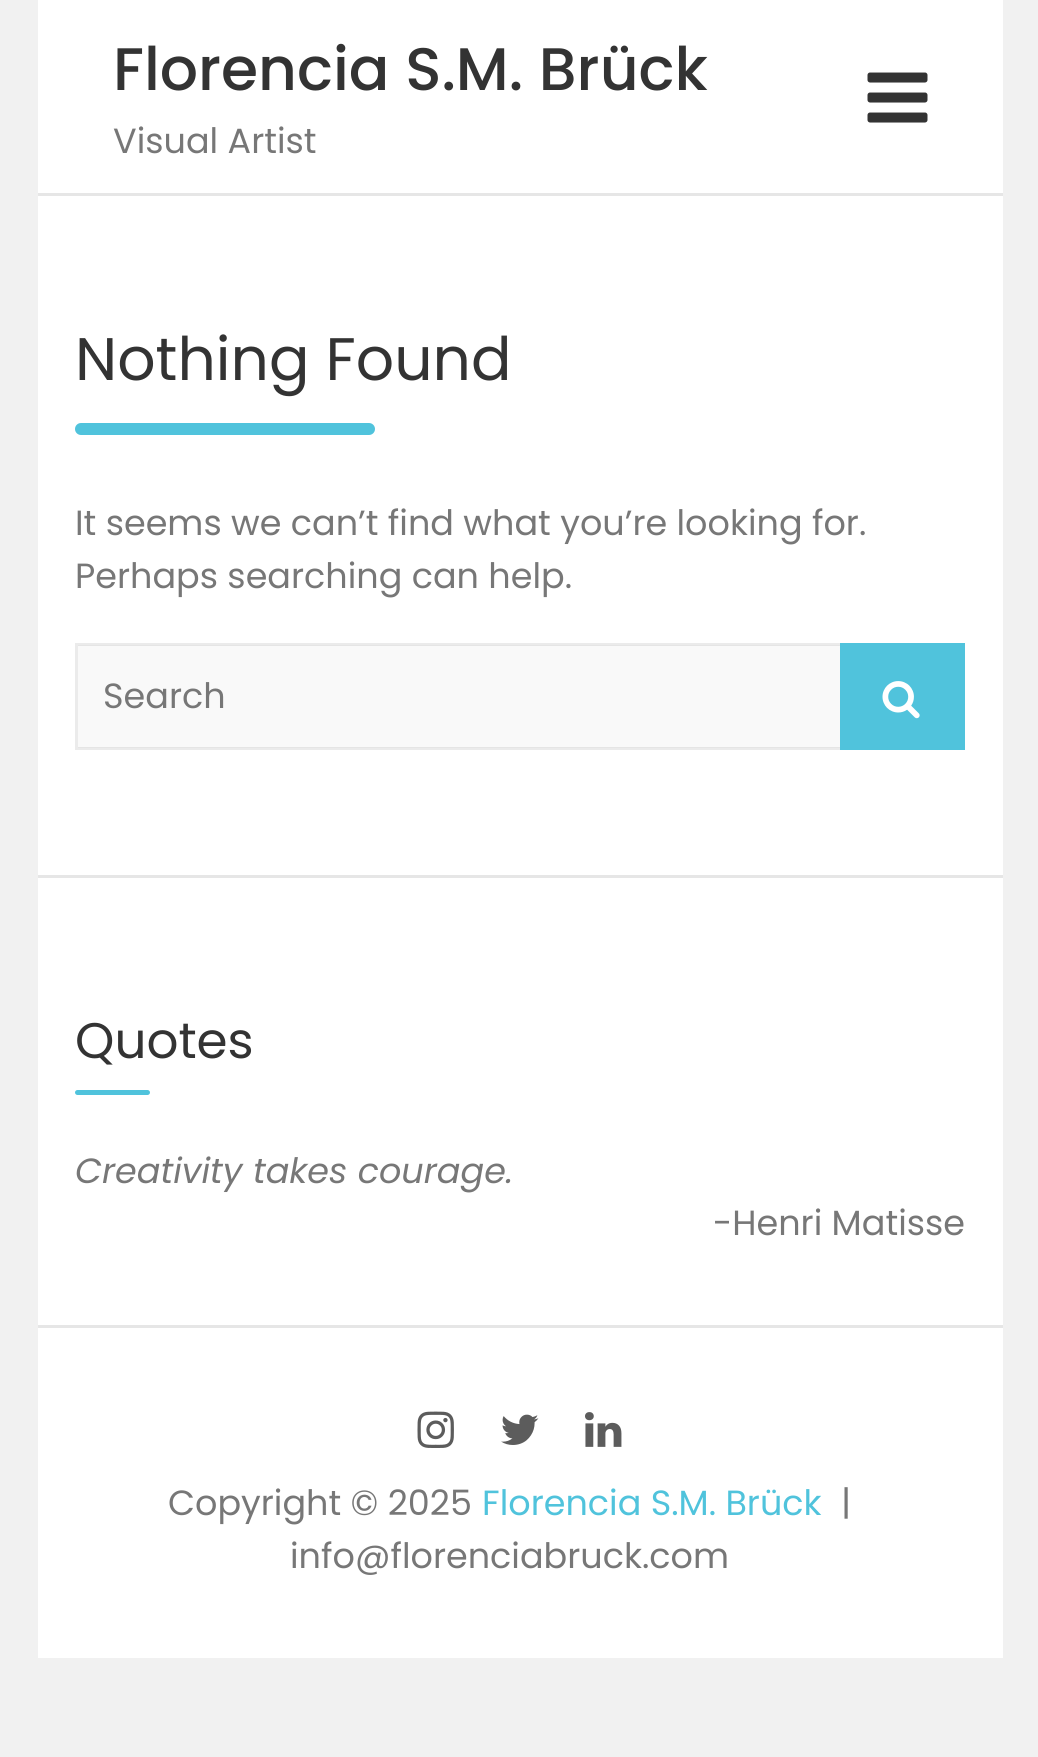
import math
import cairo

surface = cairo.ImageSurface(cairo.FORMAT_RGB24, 1038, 1757)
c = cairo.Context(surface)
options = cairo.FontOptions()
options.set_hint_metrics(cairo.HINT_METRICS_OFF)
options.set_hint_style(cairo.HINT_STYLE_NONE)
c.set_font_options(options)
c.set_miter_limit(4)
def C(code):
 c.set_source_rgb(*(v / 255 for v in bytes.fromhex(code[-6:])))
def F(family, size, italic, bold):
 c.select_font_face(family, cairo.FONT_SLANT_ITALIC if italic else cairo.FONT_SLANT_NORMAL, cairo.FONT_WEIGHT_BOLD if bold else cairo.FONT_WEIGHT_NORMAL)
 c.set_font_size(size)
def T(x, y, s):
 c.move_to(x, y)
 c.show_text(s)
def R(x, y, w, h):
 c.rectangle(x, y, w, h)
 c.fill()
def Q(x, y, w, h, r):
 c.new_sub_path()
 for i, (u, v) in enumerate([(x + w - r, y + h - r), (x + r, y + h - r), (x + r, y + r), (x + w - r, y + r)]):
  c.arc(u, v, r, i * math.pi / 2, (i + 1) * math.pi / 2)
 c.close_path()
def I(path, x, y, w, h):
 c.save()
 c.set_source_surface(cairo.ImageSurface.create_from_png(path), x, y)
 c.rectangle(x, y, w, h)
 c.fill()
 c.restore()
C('f1f1f1')
c.paint()
C('ffffff')
R(38,0,965,1658)
C('e6e6e6')
R(38,193,965,3)
F('Poppins Medium',60,0,0)
C('333333')
T(113,90,'Florencia S.M. Brück')
F('Poppins',35,0,0)
C('777777')
T(113,153,'Visual Artist')
I('1.png',867,72,61,51)
F('Poppins',60,0,0)
C('333333')
T(75,380,'Nothing Found')
C('50c3dc')
Q(75,423,300,12,6)
c.fill()
F('Poppins',35,0,0)
C('777777')
T(75,535,'It seems we can’t find what you’re looking for.')
T(75,588,'Perhaps searching can help.')
C('f9f9f9')
R(78,645,762,103)
c.rectangle(76.5,644.5,765,104)
c.set_source_rgba(0,0,0,0.08)
c.set_line_width(3)
c.stroke()
C('777777')
T(103,708,'Search')
C('50c3dc')
R(840,643,125,107)
I('2.png',882,681,38,38)
C('e6e6e6')
R(38,875,965,3)
F('Poppins',50,0,0)
C('333333')
T(75,1058,'Quotes')
C('50c3dc')
Q(75,1090,75,5,2.5)
c.fill()
F('Poppins',35,1,0)
C('777777')
T(75,1183,'Creativity takes courage.')
F('Poppins',35,0,0)
T(713,1235,'-Henri Matisse')
C('e6e6e6')
R(38,1325,965,3)
I('3.png',417,1411,37,37)
I('4.png',501,1414,38,31)
I('5.png',585,1412,37,35)
C('777777')
T(168,1515,'Copyright © 2025')
C('50c3dc')
T(482,1515,'Florencia S.M. Brück')
C('777777')
T(841,1515,'|')
T(290,1568,'info@florenciabruck.com')
surface.write_to_png('o.png')
